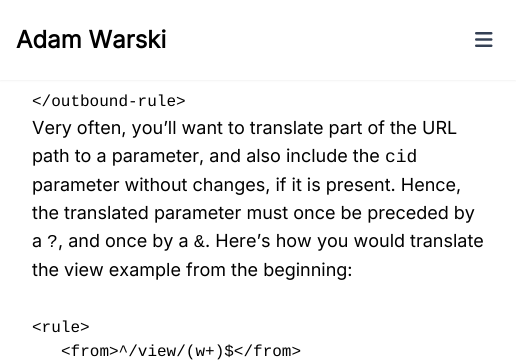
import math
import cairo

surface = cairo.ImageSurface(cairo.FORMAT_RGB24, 516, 363)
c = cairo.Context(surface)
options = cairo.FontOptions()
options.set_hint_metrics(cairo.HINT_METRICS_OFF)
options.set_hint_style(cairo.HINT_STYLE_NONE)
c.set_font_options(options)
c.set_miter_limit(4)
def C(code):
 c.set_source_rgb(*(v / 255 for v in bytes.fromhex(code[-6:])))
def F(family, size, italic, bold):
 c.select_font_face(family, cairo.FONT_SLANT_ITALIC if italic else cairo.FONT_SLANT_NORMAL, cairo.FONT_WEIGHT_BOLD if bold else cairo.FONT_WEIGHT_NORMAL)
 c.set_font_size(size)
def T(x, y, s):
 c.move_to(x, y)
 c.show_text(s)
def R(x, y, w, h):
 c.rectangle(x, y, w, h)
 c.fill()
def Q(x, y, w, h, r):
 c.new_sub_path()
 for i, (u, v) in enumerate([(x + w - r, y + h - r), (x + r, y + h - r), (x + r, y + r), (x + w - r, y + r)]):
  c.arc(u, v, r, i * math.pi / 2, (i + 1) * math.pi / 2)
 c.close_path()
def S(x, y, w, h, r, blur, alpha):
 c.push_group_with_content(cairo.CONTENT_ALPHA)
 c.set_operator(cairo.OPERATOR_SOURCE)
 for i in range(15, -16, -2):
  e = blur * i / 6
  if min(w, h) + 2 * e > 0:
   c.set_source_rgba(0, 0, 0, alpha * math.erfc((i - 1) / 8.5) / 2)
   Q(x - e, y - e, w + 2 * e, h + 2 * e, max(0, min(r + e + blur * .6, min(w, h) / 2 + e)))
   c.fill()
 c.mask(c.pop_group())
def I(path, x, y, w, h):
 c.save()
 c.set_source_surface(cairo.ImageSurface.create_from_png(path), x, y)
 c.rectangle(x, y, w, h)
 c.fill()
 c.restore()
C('ffffff')
c.paint()
C('000000')
S(0,1,516,80,0,1,.05)
C('ffffff')
R(0,0,516,80)
F('Inter',24,0,1)
C('000000')
T(16,48,'Adam Warski')
I('1.png',475,32,18,15)
F('Liberation Mono',16,0,0)
T(32,106,'</outbound-rule>')
F('Inter',18,0,0)
T(32,134,'Very often, you’ll want to translate part of the URL')
T(32,162,'path to a parameter, and also include the')
F('Liberation Mono',18,0,0)
T(385,162,'cid')
F('Inter',18,0,0)
T(32,191,'parameter without changes, if it is present. Hence,')
T(32,219,'the translated parameter must once be preceded by')
T(32,247,'a')
F('Liberation Mono',18,0,0)
T(47,247,'?')
F('Inter',18,0,0)
T(58,247,', and once by a')
F('Liberation Mono',18,0,0)
T(194,247,'&')
F('Inter',18,0,0)
T(205,247,'. Here’s how you would translate')
T(32,276,'the view example from the beginning:')
F('Liberation Mono',16,0,0)
T(32,332,'<rule>')
T(61,356,'<from>^/view/(w+)$</from>')
surface.write_to_png('o.png')
